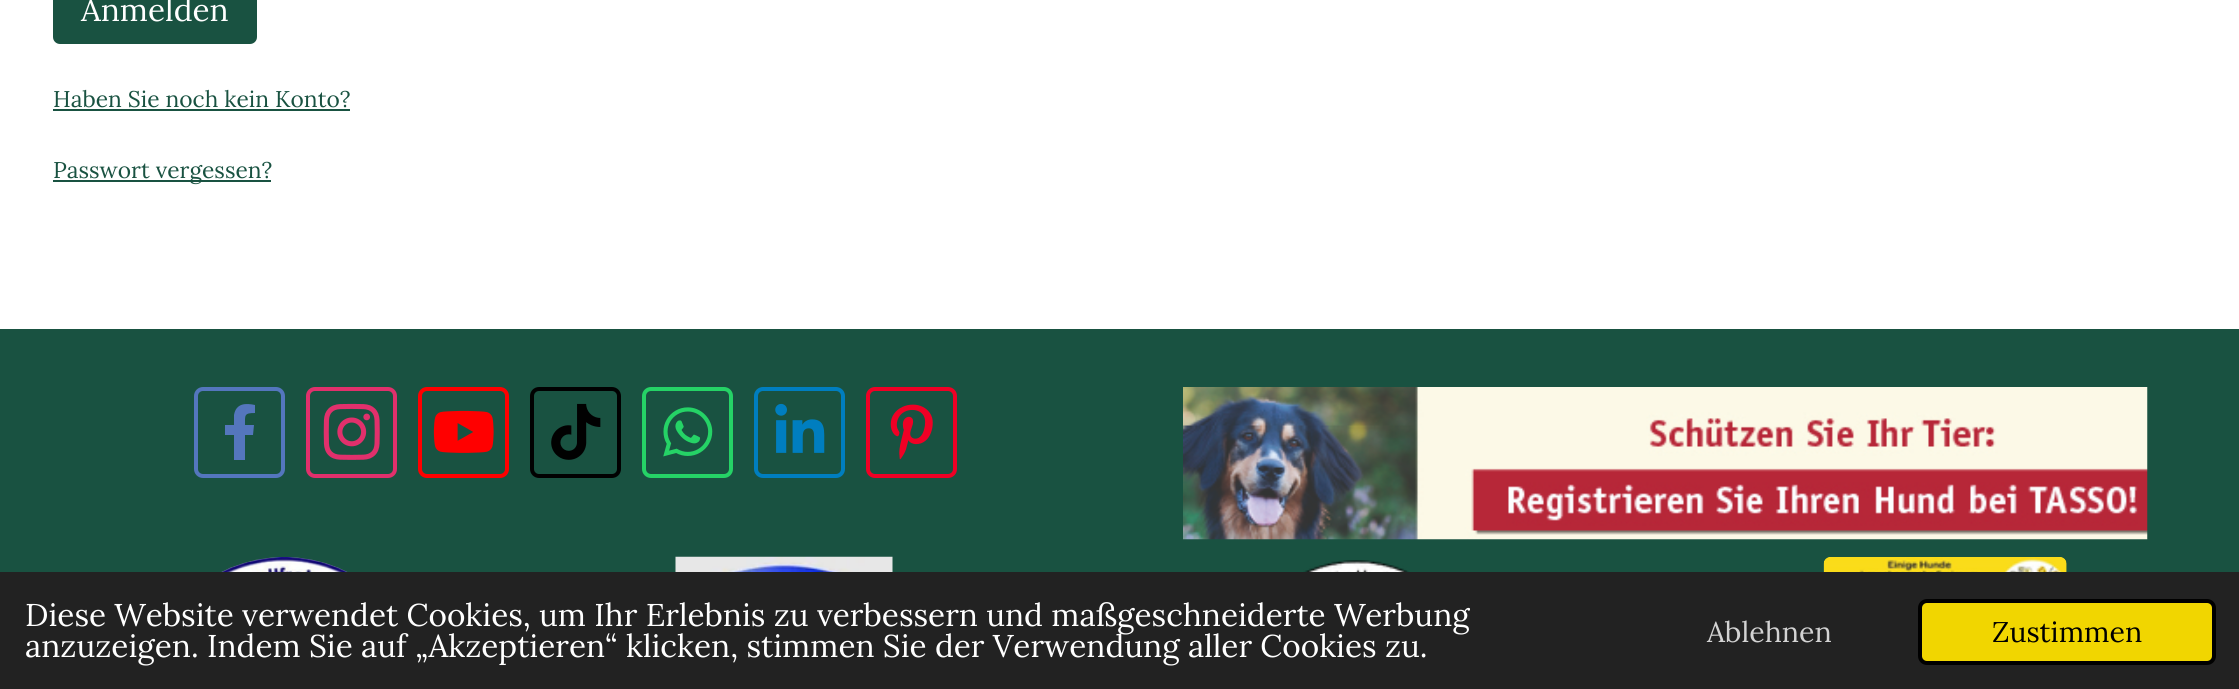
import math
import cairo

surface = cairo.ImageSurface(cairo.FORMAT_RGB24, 2239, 689)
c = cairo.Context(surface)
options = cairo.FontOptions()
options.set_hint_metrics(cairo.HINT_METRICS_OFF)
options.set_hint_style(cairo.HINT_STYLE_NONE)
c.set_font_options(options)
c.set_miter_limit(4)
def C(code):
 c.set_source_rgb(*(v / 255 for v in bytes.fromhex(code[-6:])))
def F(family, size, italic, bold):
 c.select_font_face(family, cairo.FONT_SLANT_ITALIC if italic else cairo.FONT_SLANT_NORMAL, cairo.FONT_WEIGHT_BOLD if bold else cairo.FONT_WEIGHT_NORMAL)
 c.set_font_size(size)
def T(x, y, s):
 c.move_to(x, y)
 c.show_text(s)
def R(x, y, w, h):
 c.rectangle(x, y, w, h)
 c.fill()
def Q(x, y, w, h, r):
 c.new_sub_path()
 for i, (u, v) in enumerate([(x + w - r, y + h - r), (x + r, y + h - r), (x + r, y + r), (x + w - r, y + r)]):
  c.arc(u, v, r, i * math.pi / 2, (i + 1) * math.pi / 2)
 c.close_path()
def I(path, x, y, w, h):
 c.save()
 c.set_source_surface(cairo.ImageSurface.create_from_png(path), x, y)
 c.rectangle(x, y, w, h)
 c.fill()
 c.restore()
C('ffffff')
c.paint()
C('195241')
Q(53,-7,204,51,7)
c.fill()
F('Lora',31.5,0,0)
C('ffffff')
T(81,21,'Anmelden')
F('Lora',22.75,0,0)
C('195241')
T(53,107,'Haben Sie noch kein Konto?')
R(53,109,297,2)
R(53,180,218,2)
T(53,178,'Passwort vergessen?')
R(0,329,2239,243)
Q(196,389,87,87,7)
C('5476bd')
c.set_line_width(4)
c.stroke()
c.new_path()
c.move_to(253,435)
c.line_to(254,425)
c.line_to(245,425)
c.curve_to(245,415,244,413,255,413)
c.line_to(255,405)
c.curve_to(246,403,236,403,234,415)
c.line_to(234,425)
c.line_to(225,425)
c.line_to(225,435)
c.line_to(234,435)
c.line_to(234,460)
c.line_to(245,460)
c.line_to(245,435)
c.close_path()
c.fill()
Q(308,389,87,87,7)
C('e1306c')
c.stroke()
I('1.png',323,403,57,57)
Q(420,389,87,87,7)
C('ff0000')
c.stroke()
I('2.png',433,410,61,43)
Q(532,389,87,87,7)
C('010101')
c.stroke()
I('3.png',551,403,50,57)
Q(644,389,87,87,7)
C('25d366')
c.stroke()
I('4.png',663,407,50,50)
Q(756,389,87,87,7)
C('007ebf')
c.stroke()
I('5.png',775,403,50,50)
Q(868,389,87,87,7)
C('f00025')
c.stroke()
I('6.png',890,404,43,56)
I('7.png',1183,387,965,153)
I('8.png',221,557,127,15)
I('9.png',675,556,218,16)
I('10.png',1303,560,107,12)
I('11.png',1823,557,244,15)
C('222222')
R(0,572,2239,117)
F('Lora',31.5,0,0)
C('ffffff')
T(25,626,'Diese Website verwendet Cookies, um Ihr Erlebnis zu verbessern und maßgeschneiderte Werbung')
T(25,657,'anzuzeigen. Indem Sie auf „Akzeptieren“ klicken, stimmen Sie der Verwendung aller Cookies zu.')
F('Lora',28.5,0,0)
C('d3d3d3')
T(1707,642,'Ablehnen')
C('f1d600')
Q(1920,601,294,62,7)
c.fill_preserve()
C('000000')
c.stroke()
T(1992,642,'Zustimmen')
surface.write_to_png('o.png')
